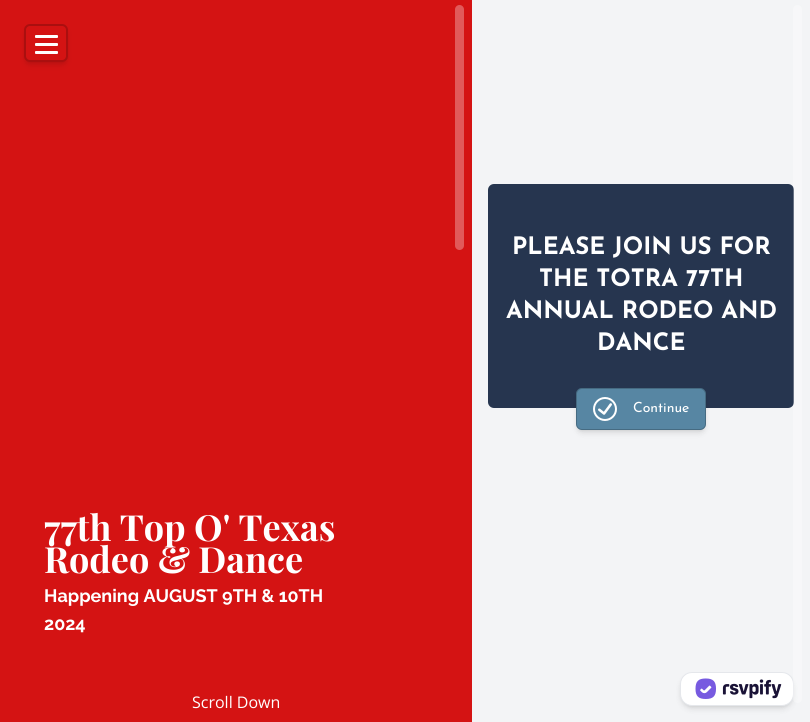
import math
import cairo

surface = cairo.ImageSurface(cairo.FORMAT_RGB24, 810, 722)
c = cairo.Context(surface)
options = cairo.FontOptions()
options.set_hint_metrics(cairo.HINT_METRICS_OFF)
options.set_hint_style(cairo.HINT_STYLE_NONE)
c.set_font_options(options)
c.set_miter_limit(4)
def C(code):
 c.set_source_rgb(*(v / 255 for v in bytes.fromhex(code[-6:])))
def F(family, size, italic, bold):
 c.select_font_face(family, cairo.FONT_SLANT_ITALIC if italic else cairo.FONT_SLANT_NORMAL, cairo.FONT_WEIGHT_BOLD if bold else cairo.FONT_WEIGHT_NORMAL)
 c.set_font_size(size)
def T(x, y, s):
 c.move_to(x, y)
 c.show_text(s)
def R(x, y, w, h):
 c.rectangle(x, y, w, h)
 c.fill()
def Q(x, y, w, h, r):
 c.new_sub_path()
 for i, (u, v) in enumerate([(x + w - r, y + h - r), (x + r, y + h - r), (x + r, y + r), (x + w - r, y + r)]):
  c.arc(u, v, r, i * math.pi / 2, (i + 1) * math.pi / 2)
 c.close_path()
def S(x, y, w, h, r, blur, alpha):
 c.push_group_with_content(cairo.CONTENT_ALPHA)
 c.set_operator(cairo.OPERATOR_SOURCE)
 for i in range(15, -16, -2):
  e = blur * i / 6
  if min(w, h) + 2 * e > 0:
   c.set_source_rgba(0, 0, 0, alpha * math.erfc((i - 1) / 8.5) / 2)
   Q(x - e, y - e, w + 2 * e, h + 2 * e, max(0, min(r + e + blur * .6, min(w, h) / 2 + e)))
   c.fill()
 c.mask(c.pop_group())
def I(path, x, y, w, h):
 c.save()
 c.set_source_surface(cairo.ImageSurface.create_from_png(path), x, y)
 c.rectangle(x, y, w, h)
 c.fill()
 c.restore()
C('f3f4f6')
c.paint()
C('26354f')
Q(488,184,306,224,6)
c.fill()
F('Josefin Sans',24,0,1)
C('ffffff')
T(512,254,'PLEASE JOIN US FOR')
T(539,286,'THE TOTRA 77TH')
T(506,318,'ANNUAL RODEO AND')
T(597,350,'DANCE')
C('000000')
S(578,392,126,38,4,2,.1)
S(577,393,128,40,5,3,.1)
C('5786a3')
Q(576,388,130,42,6)
c.fill()
Q(576.5,388.5,129,41,5.5)
c.set_source_rgba(0,0,0,0.2)
c.set_line_width(1)
c.stroke()
I('1.png',593,397,24,24)
F('Josefin Sans',14,0,0)
C('ffffff')
T(633,412,'Continue')
C('000000')
S(682,676,110,30,10,2,.1)
S(681,677,112,32,11,3,.1)
C('ffffff')
Q(680.5,672.5,113,33,11.5)
c.fill_preserve()
C('e5e7eb')
c.stroke()
c.set_source_rgba(1,1,1,0.3)
Q(793,5,9,698,4.5)
c.fill()
I('2.png',695,678,87,21)
C('d41313')
R(0,0,472,722)
C('e15a5a')
Q(455,5,9,245,4.5)
c.fill()
C('000000')
S(26,28,40,34,4,2,.1)
S(25,29,42,36,5,3,.1)
C('d41313')
Q(25,25,42,36,5)
c.fill_preserve()
C('aa0f0f')
c.set_line_width(2)
c.stroke()
C('ffffff')
Q(35,35,23,3,1)
c.fill()
Q(35,43,23,3,1)
c.fill()
Q(35,51,23,3,1)
c.fill()
F('Playfair Display',36,0,1)
T(44,541,'77th Top O\' Texas')
T(44,573,'Rodeo & Dance')
F('Raleway',18,0,1)
T(44,602,'Happening AUGUST 9TH & 10TH')
T(44,630,'2024')
F('Open Sans',16,0,0)
T(192,708,'Scroll Down')
surface.write_to_png('o.png')
